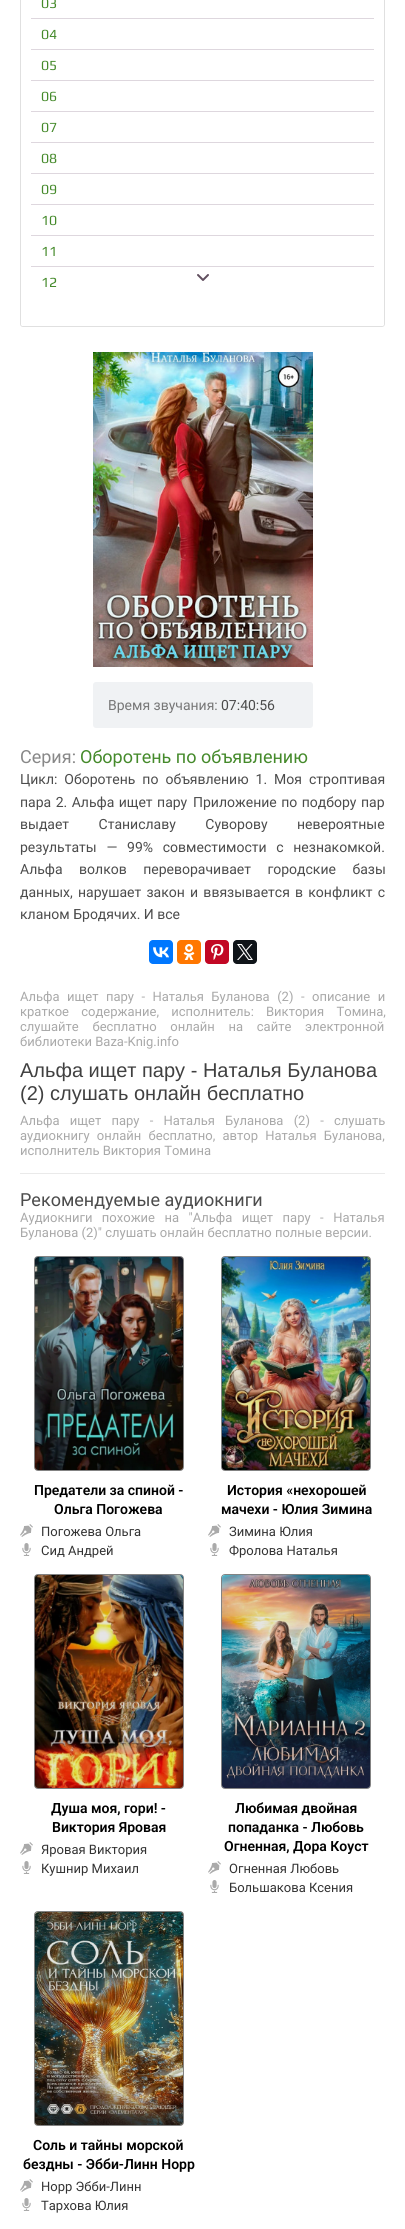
import math
import cairo

surface = cairo.ImageSurface(cairo.FORMAT_RGB24, 405, 2229)
c = cairo.Context(surface)
options = cairo.FontOptions()
options.set_hint_metrics(cairo.HINT_METRICS_OFF)
options.set_hint_style(cairo.HINT_STYLE_NONE)
c.set_font_options(options)
c.set_miter_limit(4)
def C(code):
 c.set_source_rgb(*(v / 255 for v in bytes.fromhex(code[-6:])))
def F(family, size, italic, bold):
 c.select_font_face(family, cairo.FONT_SLANT_ITALIC if italic else cairo.FONT_SLANT_NORMAL, cairo.FONT_WEIGHT_BOLD if bold else cairo.FONT_WEIGHT_NORMAL)
 c.set_font_size(size)
def T(x, y, s):
 c.move_to(x, y)
 c.show_text(s)
def L(x, y, s, letter, word):
 c.move_to(x, y)
 for ch in s:
  c.show_text(ch)
  c.rel_move_to(letter + word * (ch == ' '), 0)
def R(x, y, w, h):
 c.rectangle(x, y, w, h)
 c.fill()
def Q(x, y, w, h, r):
 c.new_sub_path()
 for i, (u, v) in enumerate([(x + w - r, y + h - r), (x + r, y + h - r), (x + r, y + r), (x + w - r, y + r)]):
  c.arc(u, v, r, i * math.pi / 2, (i + 1) * math.pi / 2)
 c.close_path()
def I(path, x, y, w, h):
 c.save()
 c.set_source_surface(cairo.ImageSurface.create_from_png(path), x, y)
 c.rectangle(x, y, w, h)
 c.fill()
 c.restore()
C('ffffff')
c.paint()
Q(20.5,-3.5,364,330,2.5)
C('e0e0e0')
c.set_line_width(1)
c.stroke()
C('ffffff')
Q(21,-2,363,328,2)
c.fill()
F('Play',14,0,0)
C('458a2b')
T(41,8,'03')
C('ded7de')
R(31,18,343,1)
C('458a2b')
T(41,39,'04')
C('ded7de')
R(31,49,343,1)
C('458a2b')
T(41,70,'05')
C('ded7de')
R(31,80,343,1)
C('458a2b')
T(41,101,'06')
C('ded7de')
R(31,111,343,1)
C('458a2b')
T(41,132,'07')
C('ded7de')
R(31,142,343,1)
C('458a2b')
T(41,163,'08')
C('ded7de')
R(31,173,343,1)
C('458a2b')
T(41,194,'09')
C('ded7de')
R(31,204,343,1)
C('458a2b')
T(41,225,'10')
C('ded7de')
R(31,235,343,1)
C('458a2b')
T(41,256,'11')
C('ded7de')
R(31,266,343,1)
C('458a2b')
T(41,287,'12')
c.new_path()
c.move_to(198,275)
c.line_to(203,280)
c.move_to(203,280)
c.line_to(208,275)
C('614f5f')
c.set_line_width(2)
c.set_line_cap(cairo.LINE_CAP_ROUND)
c.stroke()
I('1.png',93,352,220,315)
C('f0f2f4')
Q(93,682,220,46,3)
c.fill()
F('Roboto',14,0,0)
C('777777')
T(108,710,'Время звучания:')
C('4c4c4c')
T(221,710,'07:40:56')
F('Roboto',18,0,0)
C('888888')
T(20,763,'Серия:')
C('458a2b')
T(80,763,'Оборотень по объявлению')
F('Roboto',14,0,0)
C('4c4c4c')
L(20,784,'Цикл: Оборотень по объявлению 1. Моя строптивая',0,3.5)
L(20,807,'пара 2. Альфа ищет пару',0,1)
L(193,807,'Приложение по подбору пар',0,1)
L(20,829,'выдает Станиславу Суворову невероятные',0,26)
L(20,852,'результаты — 99% совместимости с незнакомкой.',0,6.25)
L(20,874,'Альфа волков переворачивает городские базы',0,13)
L(20,897,'данных, нарушает закон и ввязывается в конфликт с',0,1.75)
T(20,919,'кланом Бродячих. И все')
C('0077ff')
Q(149,940,24,24,4)
c.fill()
I('2.png',153,947,16,11)
C('ff7700')
Q(177,940,24,24,4)
c.fill()
I('3.png',183,944,12,16)
C('c20724')
Q(205,940,24,24,4)
c.fill()
I('4.png',211,944,13,16)
C('0f1419')
Q(233,940,24,24,4)
c.fill()
I('5.png',237,944,16,16)
F('Roboto',13,0,0)
C('a9a9a9')
L(20,1001,'Альфа ищет пару - Наталья Буланова (2) - описание и',0,4.25)
L(20,1016,'краткое содержание, исполнитель: Виктория Томина,',0,9)
L(20,1031,'слушайте бесплатно онлайн на сайте электронной',0,10.5)
T(20,1046,'библиотеки Baza-Knig.info')
F('Liberation Sans',20,0,0)
C('404040')
T(20,1077,'Альфа ищет пару - Наталья Буланова')
T(20,1100,'(2) слушать онлайн бесплатно')
F('Roboto',13,0,0)
C('a9a9a9')
L(20,1125,'Альфа ищет пару - Наталья Буланова (2) - слушать',0,7)
L(20,1140,'аудиокнигу онлайн бесплатно, автор Наталья Буланова,',0,4)
T(20,1155,'исполнитель Виктория Томина')
C('eaeaea')
R(20,1173,365,1)
F('Roboto',18,0,0)
C('4c4c4c')
T(20,1206,'Рекомендуемые аудиокниги')
F('Roboto',13,0,0)
C('a9a9a9')
L(20,1222,'Аудиокниги похожие на "Альфа ищет пару - Наталья',0,6.25)
T(20,1237,'Буланова (2)" слушать онлайн бесплатно полные версии.')
Q(34.5,1256.5,149,214,3.5)
C('838383')
c.set_line_width(1)
c.set_line_cap(cairo.LINE_CAP_BUTT)
c.stroke()
I('6.png',35,1257,148,213)
F('Roboto SemiBold',14,0,0)
C('000000')
T(34,1495,'Предатели за спиной -')
T(54,1514,'Ольга Погожева')
I('7.png',20,1524,13,13)
F('Roboto',13,0,0)
C('333333')
T(41,1536,'Погожева Ольга')
I('8.png',22,1543,9,13)
T(41,1555,'Сид Андрей')
Q(221.5,1256.5,149,214,3.5)
C('838383')
c.stroke()
I('9.png',222,1257,148,213)
F('Roboto SemiBold',14,0,0)
C('000000')
T(227,1495,'История «нехорошей')
T(221,1514,'мачехи - Юлия Зимина')
I('7.png',208,1524,13,13)
F('Roboto',13,0,0)
C('333333')
T(229,1536,'Зимина Юлия')
I('8.png',210,1543,9,13)
T(229,1555,'Фролова Наталья')
Q(34.5,1574.5,149,214,3.5)
C('838383')
c.stroke()
I('10.png',35,1575,148,213)
F('Roboto SemiBold',14,0,0)
C('000000')
T(51,1813,'Душа моя, гори! -')
T(52,1832,'Виктория Яровая')
I('7.png',20,1842,13,13)
F('Roboto',13,0,0)
C('333333')
T(41,1854,'Яровая Виктория')
I('8.png',22,1861,9,13)
T(41,1873,'Кушнир Михаил')
Q(221.5,1574.5,149,214,3.5)
C('838383')
c.stroke()
I('11.png',222,1575,148,213)
F('Roboto SemiBold',14,0,0)
C('000000')
T(235,1813,'Любимая двойная')
T(228,1832,'попаданка - Любовь')
T(224,1851,'Огненная, Дора Коуст')
I('7.png',208,1861,13,13)
F('Roboto',13,0,0)
C('333333')
T(229,1873,'Огненная Любовь')
I('8.png',210,1880,9,13)
T(229,1892,'Большакова Ксения')
Q(34.5,1911.5,149,214,3.5)
C('838383')
c.stroke()
I('12.png',35,1912,148,213)
F('Roboto SemiBold',14,0,0)
C('000000')
T(33,2150,'Соль и тайны морской')
T(23,2169,'бездны - Эбби-Линн Норр')
I('7.png',20,2179,13,13)
F('Roboto',13,0,0)
C('333333')
T(41,2191,'Норр Эбби-Линн')
I('8.png',22,2198,9,13)
T(41,2210,'Тархова Юлия')
surface.write_to_png('o.png')
